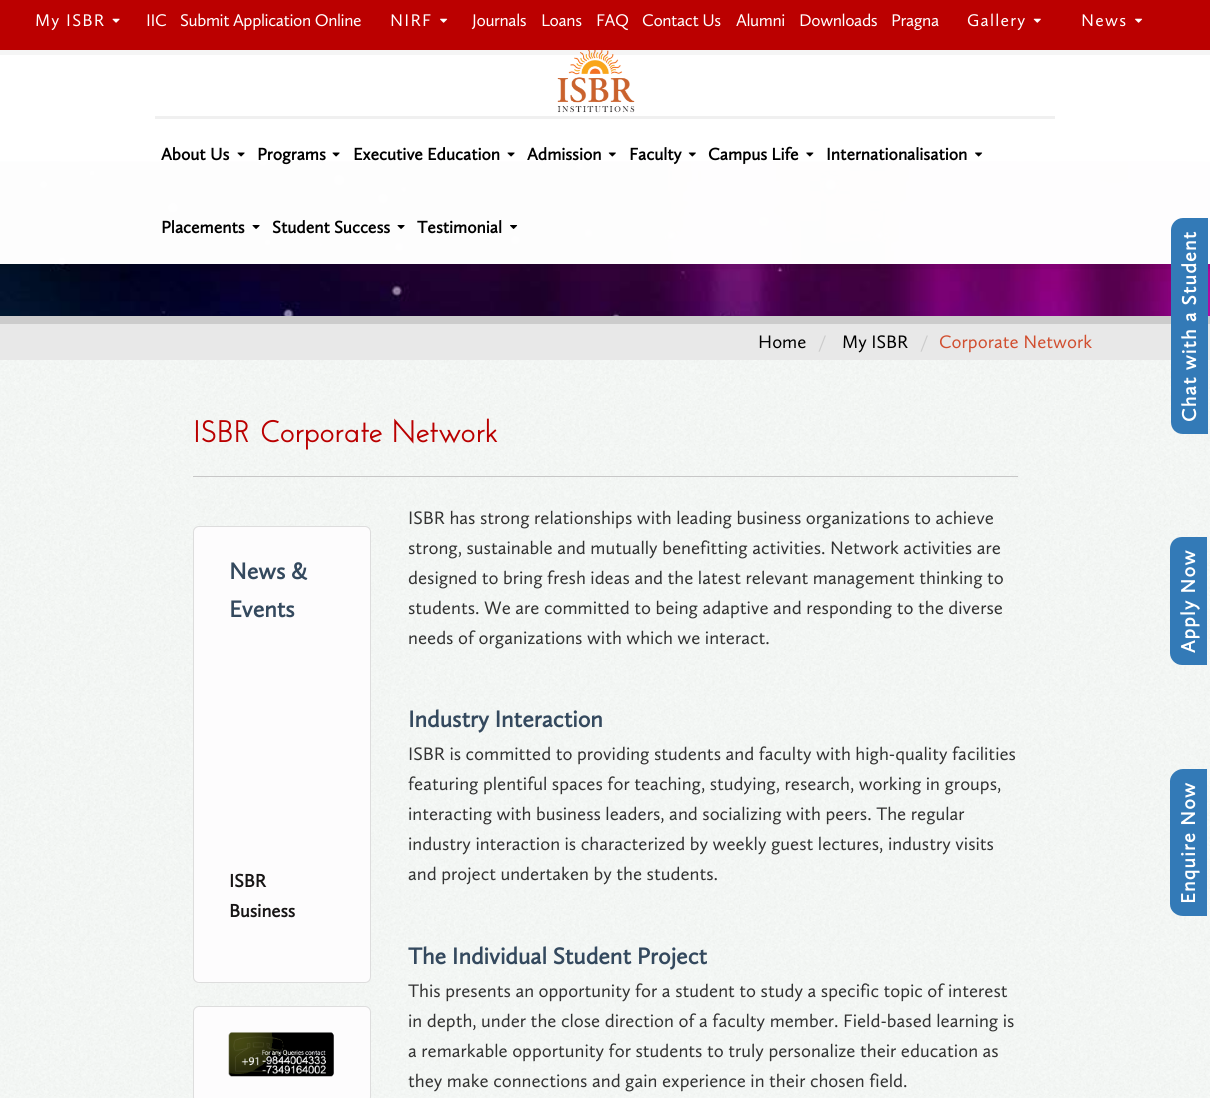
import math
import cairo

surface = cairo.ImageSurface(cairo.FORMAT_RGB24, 1210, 1098)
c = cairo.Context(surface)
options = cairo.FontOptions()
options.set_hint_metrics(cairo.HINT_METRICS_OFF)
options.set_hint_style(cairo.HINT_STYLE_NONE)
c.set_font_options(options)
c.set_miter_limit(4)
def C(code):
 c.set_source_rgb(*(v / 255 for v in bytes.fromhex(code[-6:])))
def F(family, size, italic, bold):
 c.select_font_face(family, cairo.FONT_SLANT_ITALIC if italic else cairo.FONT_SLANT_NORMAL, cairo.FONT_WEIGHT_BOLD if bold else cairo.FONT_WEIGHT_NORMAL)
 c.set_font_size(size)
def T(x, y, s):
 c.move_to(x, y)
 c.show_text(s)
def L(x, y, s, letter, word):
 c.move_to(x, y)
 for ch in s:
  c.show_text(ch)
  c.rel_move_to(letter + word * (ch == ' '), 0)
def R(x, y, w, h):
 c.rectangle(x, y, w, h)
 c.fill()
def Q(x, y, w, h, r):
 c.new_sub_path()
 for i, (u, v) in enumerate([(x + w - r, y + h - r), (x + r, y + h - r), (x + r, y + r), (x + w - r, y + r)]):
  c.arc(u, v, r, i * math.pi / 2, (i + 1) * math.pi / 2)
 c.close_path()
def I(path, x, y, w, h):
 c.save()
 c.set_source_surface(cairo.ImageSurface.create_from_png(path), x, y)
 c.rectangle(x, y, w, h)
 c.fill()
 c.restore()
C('ffffff')
c.paint()
I('12.png',0,161,1210,155)
c.set_source_rgba(0,0,0,0.05)
R(62,264,1148,5)
c.set_source_rgba(1,1,1,0.99)
R(0,161,1210,103)
I('4.png',557,50,78,63)
c.set_source_rgba(0,0,0,0.04)
R(0,50,1210,5)
C('bb0000')
R(0,0,1210,50)
F('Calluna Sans',17.5,0,0)
C('ffffff')
L(35,26,'My ISBR',1.25,0)
I('1.png',112,18,8,5)
L(146,26,'IIC',-.4,0)
L(180,26,'Submit Application Online',-.4,0)
L(390,26,'NIRF',1.25,0)
I('2.png',440,18,8,5)
L(472,26,'Journals',-.4,0)
L(541,26,'Loans',-.4,0)
L(596,26,'FAQ',-.4,0)
L(642,26,'Contact Us',-.4,0)
L(736,26,'Alumni',-.4,0)
L(799,26,'Downloads',-.4,0)
L(891,26,'Pragna',-.4,0)
L(967,26,'Gallery',1.25,0)
I('3.png',1033,18,8,5)
L(1081,26,'News',1.25,0)
I('2.png',1135,18,8,5)
C('f0f0f0')
R(155,116,900,3)
F('Calluna Sans',17.5,0,1)
C('000000')
T(161,160,'About Us')
I('5.png',237,152,8,5)
T(257,160,'Programs')
I('5.png',332,152,8,5)
T(353,160,'Executive Education')
I('5.png',507,152,8,5)
T(527,160,'Admission')
I('6.png',608,152,8,5)
T(629,160,'Faculty')
I('6.png',688,152,8,5)
T(708,160,'Campus Life')
I('7.png',806,152,8,5)
T(826,160,'Internationalisation')
I('8.png',975,152,8,5)
T(161,233,'Placements')
I('9.png',252,225,8,4)
T(272,233,'Student Success')
I('10.png',397,225,8,4)
T(417,233,'Testimonial')
I('11.png',510,225,8,4)
C('cccccc')
R(0,316,1210,8)
C('e8e8e8')
R(0,324,1210,36)
F('Calluna Sans',18.75,0,0)
C('000000')
T(758,348,'Home')
C('cccccc')
T(818,348,'/')
C('000000')
T(842,348,'My ISBR')
C('cccccc')
T(920,348,'/')
C('d14f30')
T(939,348,'Corporate Network')
I('13.png',0,360,1210,738)
C('337ab7')
c.new_path()
c.move_to(1171,422)
c.line_to(1171,230)
c.curve_to(1171,224,1176,218,1183,218)
c.line_to(1208,218)
c.line_to(1208,434)
c.line_to(1183,434)
c.curve_to(1176,434,1171,429,1171,422)
c.close_path()
c.fill()
F('Calluna Sans',20,0,1)
C('ffffff')
c.save()
c.translate(1196,422)
c.rotate(-90 * math.pi / 180)
L(0,0,'Chat with a Student',1.25,0)
c.restore()
F('Josefin Sans',30,0,1)
C('ba0000')
T(193,442,'ISBR Corporate Network')
C('c7c7c7')
R(193,476,825,1)
C('fdfcfd')
Q(193.5,526.5,177,456,5.5)
c.fill_preserve()
C('dddddd')
c.set_line_width(1)
c.stroke()
F('Calluna Sans',23.75,0,1)
C('34495e')
T(229,579,'News &')
T(229,617,'Events')
F('Calluna Sans',18.75,0,1)
C('171515')
T(229,887,'ISBR')
T(229,917,'Business')
C('fdfcfd')
Q(193.5,1006.5,177,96,5.5)
c.fill_preserve()
C('dddddd')
c.stroke()
I('14.png',228,1032,106,45)
F('Calluna Sans',18.75,0,0)
C('333333')
T(408,524,'ISBR has strong relationships with leading business organizations to achieve')
T(408,554,'strong, sustainable and mutually benefitting activities. Network activities are')
T(408,584,'designed to bring fresh ideas and the latest relevant management thinking to')
T(408,614,'students. We are committed to being adaptive and responding to the diverse')
T(408,644,'needs of organizations with which we interact.')
F('Calluna Sans',23.75,0,1)
C('34495e')
T(408,727,'Industry Interaction')
F('Calluna Sans',18.75,0,0)
C('333333')
T(408,760,'ISBR is committed to providing students and faculty with high-quality facilities')
T(408,790,'featuring plentiful spaces for teaching, studying, research, working in groups,')
T(408,820,'interacting with business leaders, and socializing with peers. The regular')
T(408,850,'industry interaction is characterized by weekly guest lectures, industry visits')
T(408,880,'and project undertaken by the students.')
F('Calluna Sans',23.75,0,1)
C('34495e')
T(408,964,'The Individual Student Project')
F('Calluna Sans',18.75,0,0)
C('333333')
T(408,997,'This presents an opportunity for a student to study a specific topic of interest')
T(408,1027,'in depth, under the close direction of a faculty member. Field-based learning is')
T(408,1057,'a remarkable opportunity for students to truly personalize their education as')
T(408,1087,'they make connections and gain experience in their chosen field.')
C('337ab7')
c.new_path()
c.move_to(1170,653)
c.line_to(1170,549)
c.curve_to(1170,542,1175,537,1182,537)
c.line_to(1207,537)
c.line_to(1207,665)
c.line_to(1182,665)
c.curve_to(1175,665,1170,659,1170,653)
c.close_path()
c.fill()
F('Calluna Sans',20,0,1)
C('ffffff')
c.save()
c.translate(1195,653)
c.rotate(-90 * math.pi / 180)
L(0,0,'Apply Now',1.25,0)
c.restore()
C('337ab7')
c.new_path()
c.move_to(1170,904)
c.line_to(1170,781)
c.curve_to(1170,775,1176,769,1183,769)
c.line_to(1207,769)
c.line_to(1207,916)
c.line_to(1183,916)
c.curve_to(1176,916,1170,911,1170,904)
c.close_path()
c.fill()
C('ffffff')
c.save()
c.translate(1195,904)
c.rotate(-90 * math.pi / 180)
L(0,0,'Enquire Now',1.25,0)
c.restore()
surface.write_to_png('o.png')
